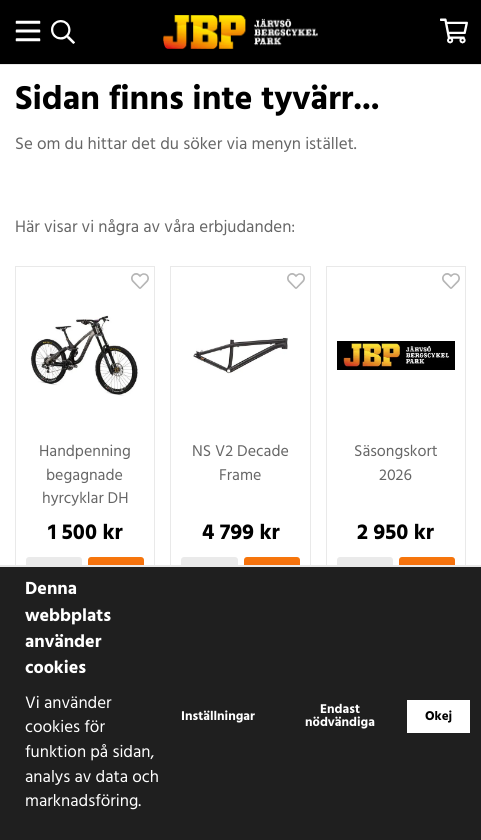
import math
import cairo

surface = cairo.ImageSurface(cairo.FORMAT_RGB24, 481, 840)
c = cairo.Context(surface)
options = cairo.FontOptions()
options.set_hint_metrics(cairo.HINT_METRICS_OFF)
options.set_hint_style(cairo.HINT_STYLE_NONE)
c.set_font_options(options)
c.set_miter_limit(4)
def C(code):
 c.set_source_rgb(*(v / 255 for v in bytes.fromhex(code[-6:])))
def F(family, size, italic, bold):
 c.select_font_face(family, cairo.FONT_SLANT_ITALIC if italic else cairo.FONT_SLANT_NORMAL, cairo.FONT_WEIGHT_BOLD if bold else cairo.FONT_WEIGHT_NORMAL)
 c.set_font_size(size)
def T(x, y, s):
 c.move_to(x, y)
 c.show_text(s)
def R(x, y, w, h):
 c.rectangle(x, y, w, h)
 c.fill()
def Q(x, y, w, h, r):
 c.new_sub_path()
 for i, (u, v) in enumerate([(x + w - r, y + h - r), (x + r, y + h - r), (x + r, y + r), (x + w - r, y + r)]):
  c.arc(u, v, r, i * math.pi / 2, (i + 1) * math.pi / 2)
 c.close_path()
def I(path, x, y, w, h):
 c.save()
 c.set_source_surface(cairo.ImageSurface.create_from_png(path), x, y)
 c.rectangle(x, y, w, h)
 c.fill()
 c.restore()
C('ffffff')
c.paint()
C('000000')
R(0,0,481,64)
C('e9e9e9')
R(0,64,481,1)
I('1.png',15,20,26,22)
I('2.png',51,20,24,24)
I('3.png',163,15,155,34)
I('4.png',440,18,28,26)
F('Hind',34,0,1)
C('000000')
T(15,109,'Sidan finns inte tyvärr...')
F('Hind',17,0,0)
C('666666')
T(15,149,'Se om du hittar det du söker via menyn istället.')
T(15,232,'Här visar vi några av våra erbjudanden:')
c.rectangle(15.5,266.5,139,352)
C('e9e9e9')
c.set_line_width(1)
c.stroke()
I('5.png',131,273,18,16)
I('6.png',30,315,109,81)
F('Hind',16,0,0)
C('666666')
T(39,456,'Handpenning')
T(46,480,'begagnade')
T(42,503,'hyrcyklar DH')
F('Hind',22,0,1)
C('000000')
T(48,539,'1 500 kr')
C('eaeaea')
Q(26,557,56,51,3)
c.fill()
gradient = cairo.LinearGradient(116,557,116,608)
gradient.add_color_stop_rgba(0,0.965,0.463,0.047,1)
gradient.add_color_stop_rgba(1,0.902,0.294,0.078,1)
c.set_source(gradient)
Q(88,557,56,51,3)
c.fill()
c.rectangle(170.5,266.5,140,352)
C('e9e9e9')
c.stroke()
I('5.png',287,273,18,16)
I('7.png',193,337,95,37)
F('Hind',16,0,0)
C('666666')
T(192,456,'NS V2 Decade')
T(219,480,'Frame')
F('Hind',22,0,1)
C('000000')
T(202,539,'4 799 kr')
C('eaeaea')
Q(181,557,57,51,3)
c.fill()
gradient = cairo.LinearGradient(272,557,272,608)
gradient.add_color_stop_rgba(0,0.965,0.463,0.047,1)
gradient.add_color_stop_rgba(1,0.902,0.294,0.078,1)
c.set_source(gradient)
Q(244,557,56,51,3)
c.fill()
c.rectangle(326.5,266.5,139,352)
C('e9e9e9')
c.stroke()
I('5.png',442,273,18,16)
I('8.png',337,341,118,29)
F('Hind',16,0,0)
C('666666')
T(354,456,'Säsongskort')
T(379,480,'2026')
F('Hind',22,0,1)
C('000000')
T(357,539,'2 950 kr')
C('eaeaea')
Q(337,557,56,51,3)
c.fill()
gradient = cairo.LinearGradient(427,557,427,608)
gradient.add_color_stop_rgba(0,0.965,0.463,0.047,1)
gradient.add_color_stop_rgba(1,0.902,0.294,0.078,1)
c.set_source(gradient)
Q(399,557,56,51,3)
c.fill()
C('1f1f1f')
R(0,567,481,273)
C('e9e9e9')
R(0,565,481,2)
F('Hind',18,0,1)
C('ffffff')
T(25,594,'Denna')
T(25,621,'webbplats')
T(25,647,'använder')
T(25,673,'cookies')
F('Hind',17,0,0)
T(25,708,'Vi använder')
T(25,732,'cookies för')
T(25,757,'funktion på sidan,')
T(25,782,'analys av data och')
T(25,806,'marknadsföring.')
F('Hind',13,0,1)
T(181,720,'Inställningar')
T(320,713,'Endast')
T(305,726,'nödvändiga')
R(407,700,63,33)
C('000000')
T(425,720,'Okej')
surface.write_to_png('o.png')
